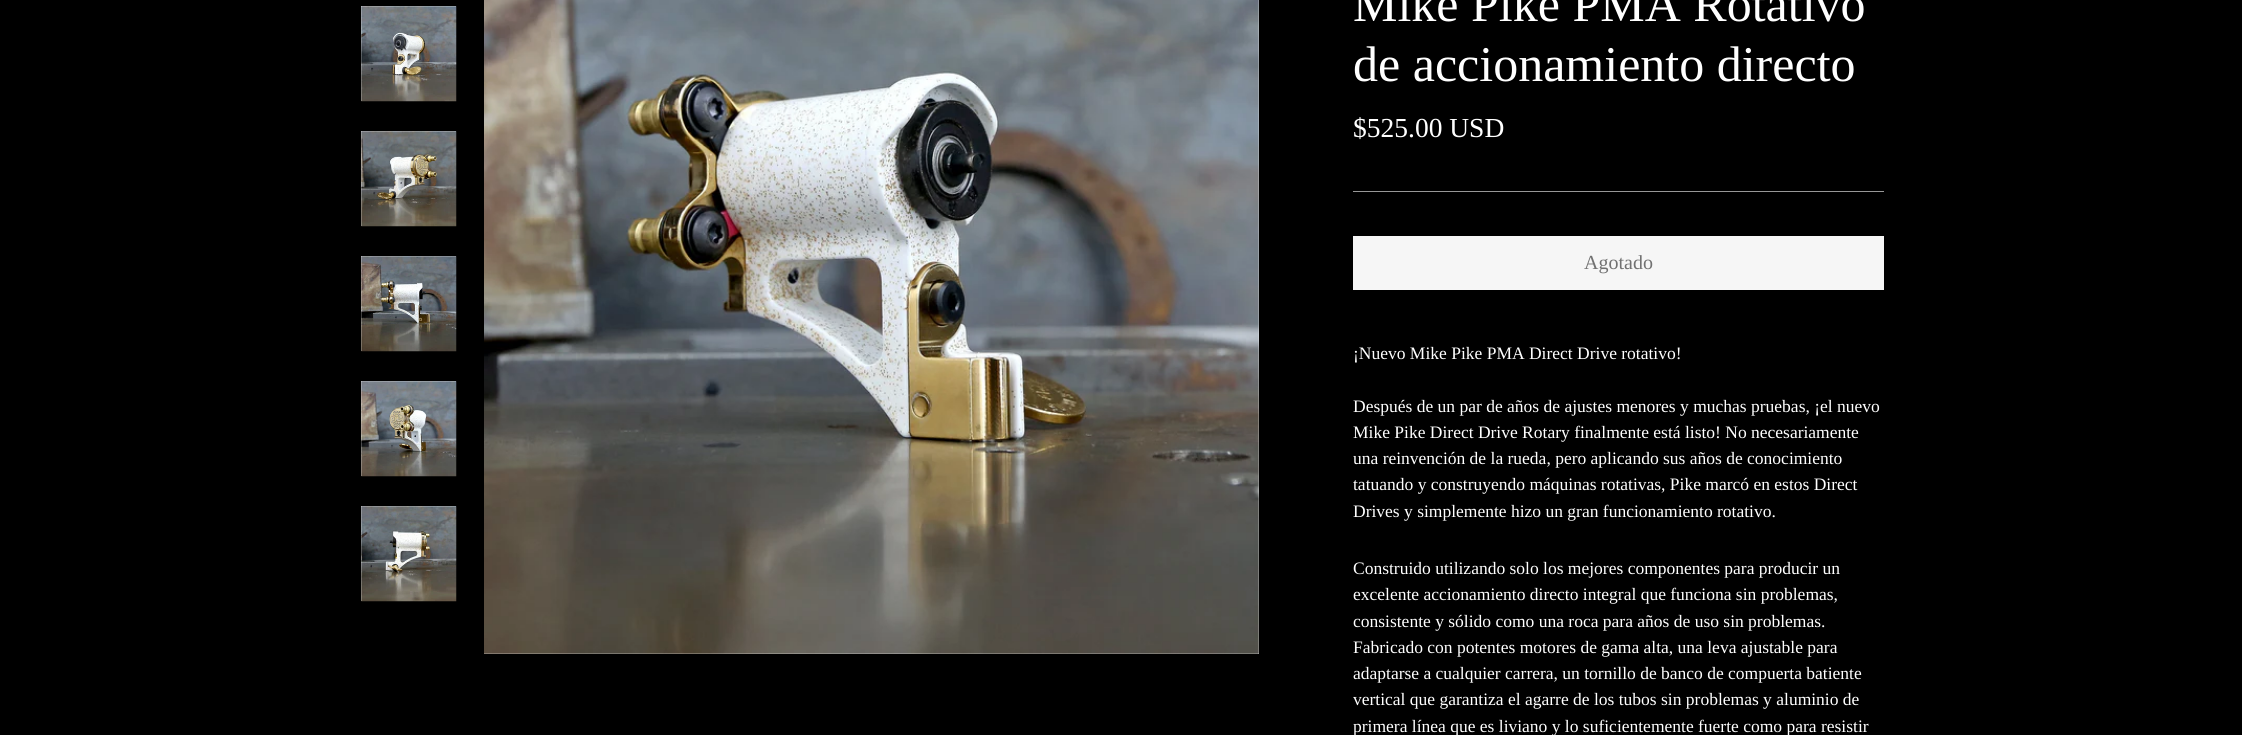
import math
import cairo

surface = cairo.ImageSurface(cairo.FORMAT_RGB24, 2242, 735)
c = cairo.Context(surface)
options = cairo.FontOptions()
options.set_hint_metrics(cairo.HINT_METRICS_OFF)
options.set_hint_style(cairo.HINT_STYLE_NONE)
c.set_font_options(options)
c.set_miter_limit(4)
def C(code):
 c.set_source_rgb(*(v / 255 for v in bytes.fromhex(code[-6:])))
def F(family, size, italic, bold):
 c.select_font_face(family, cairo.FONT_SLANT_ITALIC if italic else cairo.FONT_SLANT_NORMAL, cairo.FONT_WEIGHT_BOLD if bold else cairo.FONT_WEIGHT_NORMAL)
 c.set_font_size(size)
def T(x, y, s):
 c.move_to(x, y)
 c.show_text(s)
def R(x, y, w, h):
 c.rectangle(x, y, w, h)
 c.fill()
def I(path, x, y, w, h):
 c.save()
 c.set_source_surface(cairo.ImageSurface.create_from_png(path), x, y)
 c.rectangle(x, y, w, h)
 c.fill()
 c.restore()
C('000000')
c.paint()
C('ffffff')
R(361,6,95,95)
I('1.png',361,6,96,96)
R(361,131,95,95)
I('2.png',361,131,96,96)
R(361,256,95,95)
I('3.png',361,256,96,96)
R(361,381,95,95)
I('4.png',361,381,96,96)
R(361,506,95,95)
I('5.png',361,506,96,96)
R(484,0,775,654)
I('6.png',484,0,775,654)
F('Liberation Serif',50,0,0)
T(1353,21,'Mike Pike PMA Rotativo')
T(1353,81,'de accionamiento directo')
F('Liberation Serif',27.5,0,0)
T(1353,137,'$525.00 USD')
C('979797')
R(1353,191,531,1)
C('f6f6f6')
R(1353,236,531,54)
F('Liberation Serif',20,0,0)
C('717171')
T(1584,269,'Agotado')
F('Liberation Serif',17.5,0,0)
C('ffffff')
T(1353,359,'¡Nuevo Mike Pike PMA Direct Drive rotativo!')
T(1353,412,'Después de un par de años de ajustes menores y muchas pruebas, ¡el nuevo')
T(1353,438,'Mike Pike Direct Drive Rotary finalmente está listo! No necesariamente')
T(1353,464,'una reinvención de la rueda, pero aplicando sus años de conocimiento')
T(1353,490,'tatuando y construyendo máquinas rotativas, Pike marcó en estos Direct')
T(1353,517,'Drives y simplemente hizo un gran funcionamiento rotativo.')
T(1353,574,'Construido utilizando solo los mejores componentes para producir un')
T(1353,600,'excelente accionamiento directo integral que funciona sin problemas,')
T(1353,627,'consistente y sólido como una roca para años de uso sin problemas.')
T(1353,653,'Fabricado con potentes motores de gama alta, una leva ajustable para')
T(1353,679,'adaptarse a cualquier carrera, un tornillo de banco de compuerta batiente')
T(1353,705,'vertical que garantiza el agarre de los tubos sin problemas y aluminio de')
T(1353,732,'primera línea que es liviano y lo suficientemente fuerte como para resistir')
surface.write_to_png('o.png')
